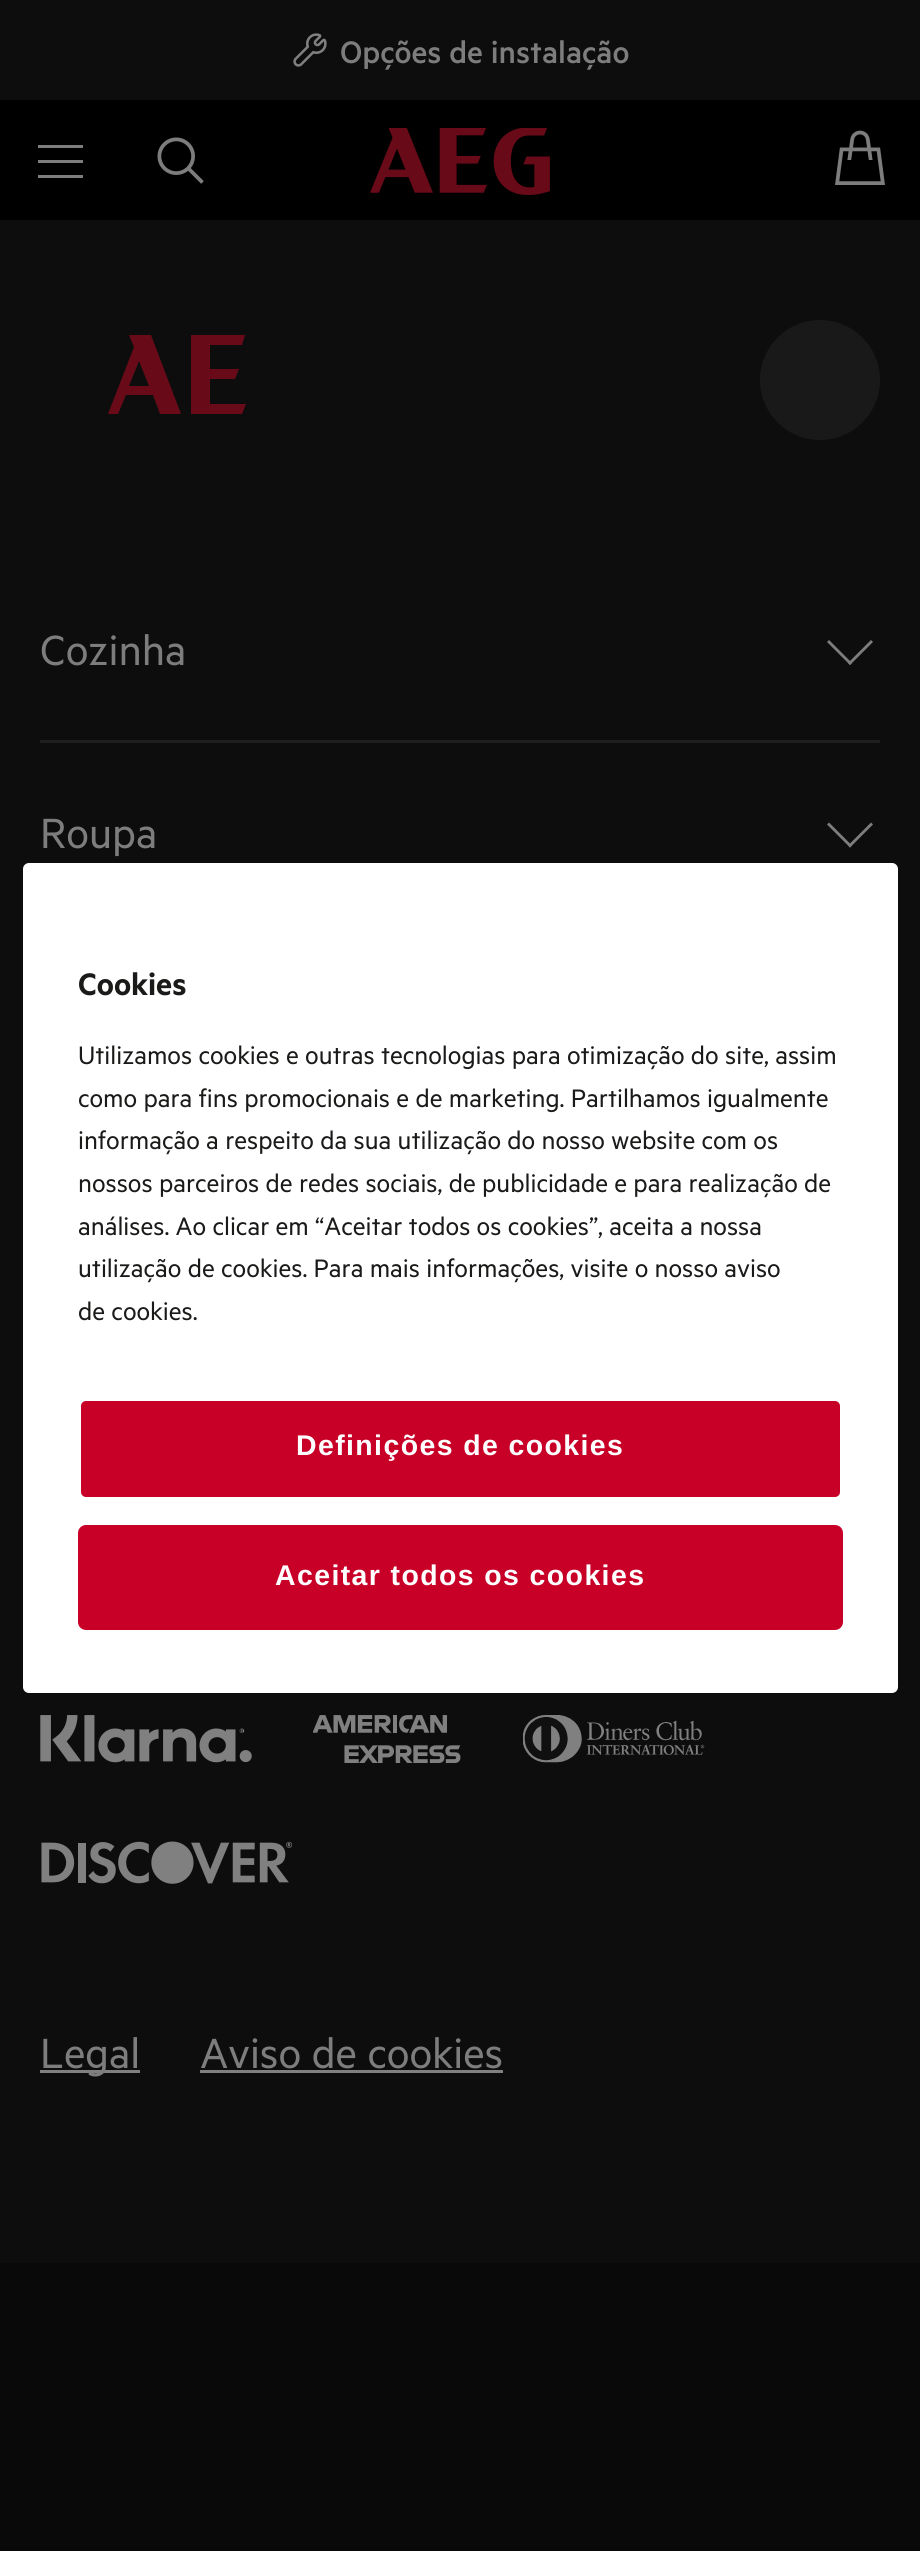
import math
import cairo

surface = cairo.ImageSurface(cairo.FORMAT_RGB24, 920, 2551)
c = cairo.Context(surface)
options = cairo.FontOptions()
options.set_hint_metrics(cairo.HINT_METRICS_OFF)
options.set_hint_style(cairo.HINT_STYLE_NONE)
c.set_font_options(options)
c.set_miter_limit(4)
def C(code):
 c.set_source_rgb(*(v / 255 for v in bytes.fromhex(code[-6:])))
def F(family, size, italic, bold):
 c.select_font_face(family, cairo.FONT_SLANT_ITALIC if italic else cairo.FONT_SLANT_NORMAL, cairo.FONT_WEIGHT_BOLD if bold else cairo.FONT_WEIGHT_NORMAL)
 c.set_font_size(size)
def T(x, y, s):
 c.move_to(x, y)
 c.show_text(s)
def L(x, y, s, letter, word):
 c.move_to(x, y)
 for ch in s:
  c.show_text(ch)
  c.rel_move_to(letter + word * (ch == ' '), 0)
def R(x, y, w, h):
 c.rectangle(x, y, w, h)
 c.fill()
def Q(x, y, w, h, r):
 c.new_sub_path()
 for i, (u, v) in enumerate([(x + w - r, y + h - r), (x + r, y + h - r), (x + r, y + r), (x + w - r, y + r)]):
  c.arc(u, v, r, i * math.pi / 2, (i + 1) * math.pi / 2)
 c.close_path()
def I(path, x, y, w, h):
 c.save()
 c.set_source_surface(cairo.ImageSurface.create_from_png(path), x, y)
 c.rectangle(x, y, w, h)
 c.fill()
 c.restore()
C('090909')
c.paint()
C('0d0d0d')
R(0,0,920,100)
I('1.png',293,33,34,34)
F('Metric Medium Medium',35,0,0)
C('7d7d7d')
T(340,63,'Opções de instalação')
C('000000')
R(0,100,920,120)
C('7d7d7d')
R(38,160,45,3)
R(38,145,45,3)
R(38,175,45,3)
I('2.png',157,137,47,47)
I('3.png',370,128,180,67)
I('4.png',835,130,50,55)
C('0d0d0d')
R(0,220,920,2043)
C('680a18')
c.new_path()
c.move_to(129,335)
c.line_to(134,347)
c.line_to(108,414)
c.line_to(118,414)
c.line_to(126,395)
c.line_to(153,395)
c.line_to(160,414)
c.line_to(181,414)
c.line_to(151,335)
c.close_path()
c.move_to(129,386)
c.line_to(139,361)
c.line_to(149,386)
c.close_path()
c.fill()
c.new_path()
c.move_to(210,379)
c.line_to(235,379)
c.line_to(239,369)
c.line_to(210,369)
c.line_to(210,345)
c.line_to(242,345)
c.line_to(245,335)
c.line_to(191,335)
c.line_to(191,414)
c.line_to(242,414)
c.line_to(246,404)
c.line_to(210,404)
c.close_path()
c.fill()
C('191919')
c.arc(820,380,60,0,2 * math.pi)
c.fill()
C('1e1e1e')
R(40,740,840,3)
F('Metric',47.5,0,0)
C('7d7d7d')
T(40,665,'Cozinha')
c.new_path()
c.move_to(871,640)
c.line_to(873,642)
c.line_to(850,665)
c.line_to(848,663)
c.close_path()
c.fill()
c.new_path()
c.move_to(829,640)
c.line_to(852,663)
c.line_to(850,665)
c.line_to(827,642)
c.close_path()
c.fill()
T(40,848,'Roupa')
c.new_path()
c.move_to(871,822.5)
c.line_to(873,824.5)
c.line_to(850,847.5)
c.line_to(848,845.5)
c.close_path()
c.fill()
c.new_path()
c.move_to(829,822.5)
c.line_to(852,845.5)
c.line_to(850,847.5)
c.line_to(827,824.5)
c.close_path()
c.fill()
I('5.png',40,1715,212,48)
I('6.png',313,1715,148,48)
I('7.png',523,1715,182,48)
I('8.png',41,1841,252,43)
C('808080')
R(40,2070,100,3)
C('7d7d7d')
T(40,2068,'Legal')
T(200,2068,'Aviso de cookies')
C('808080')
R(200,2070,303,3)
C('ffffff')
Q(23,863,875,830,6)
c.fill()
F('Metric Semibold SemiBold',35,0,0)
C('1a1a19')
T(78,995,'Cookies')
F('Metric',28.45,0,0)
T(78,1064,'Utilizamos cookies e outras tecnologias para otimização do site, assim')
T(78,1107,'como para fins promocionais e de marketing. Partilhamos igualmente')
T(78,1149,'informação a respeito da sua utilização do nosso website com os')
T(78,1192,'nossos parceiros de redes sociais, de publicidade e para realização de')
T(78,1235,'análises. Ao clicar em “Aceitar todos os cookies”, aceita a nossa')
T(78,1277,'utilização de cookies. Para mais informações, visite o nosso aviso')
T(78,1320,'de cookies.')
C('c80028')
Q(79.5,1399.5,762,99,6.5)
c.fill_preserve()
C('ffffff')
c.set_line_width(3)
c.stroke()
F('Liberation Sans',28.45,0,1)
L(296,1455,'Definições de cookies',1.4,0)
C('c80028')
Q(79.5,1526.5,762,102,6.5)
c.fill_preserve()
c.stroke()
C('ffffff')
L(275,1585,'Aceitar todos os cookies',1.4,0)
surface.write_to_png('o.png')
